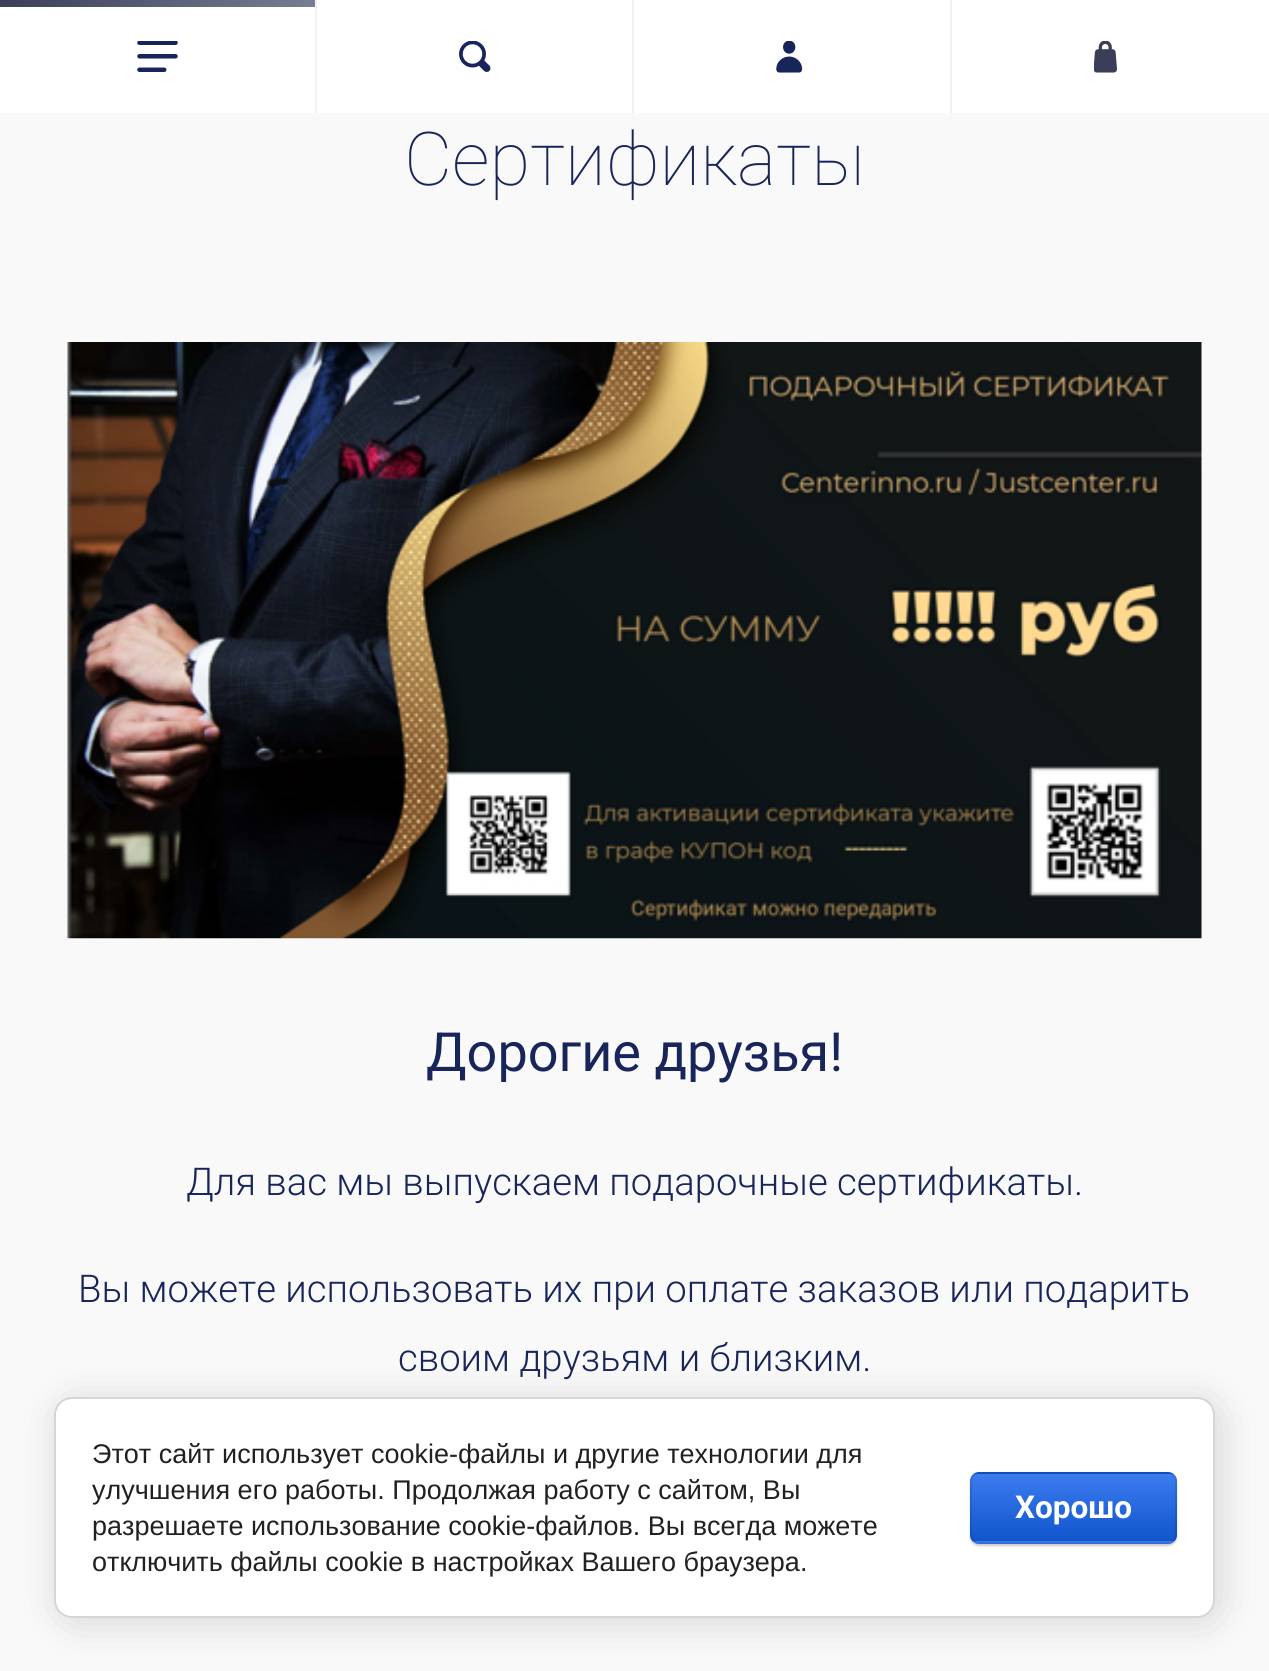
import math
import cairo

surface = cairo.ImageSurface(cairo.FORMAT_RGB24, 1269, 1671)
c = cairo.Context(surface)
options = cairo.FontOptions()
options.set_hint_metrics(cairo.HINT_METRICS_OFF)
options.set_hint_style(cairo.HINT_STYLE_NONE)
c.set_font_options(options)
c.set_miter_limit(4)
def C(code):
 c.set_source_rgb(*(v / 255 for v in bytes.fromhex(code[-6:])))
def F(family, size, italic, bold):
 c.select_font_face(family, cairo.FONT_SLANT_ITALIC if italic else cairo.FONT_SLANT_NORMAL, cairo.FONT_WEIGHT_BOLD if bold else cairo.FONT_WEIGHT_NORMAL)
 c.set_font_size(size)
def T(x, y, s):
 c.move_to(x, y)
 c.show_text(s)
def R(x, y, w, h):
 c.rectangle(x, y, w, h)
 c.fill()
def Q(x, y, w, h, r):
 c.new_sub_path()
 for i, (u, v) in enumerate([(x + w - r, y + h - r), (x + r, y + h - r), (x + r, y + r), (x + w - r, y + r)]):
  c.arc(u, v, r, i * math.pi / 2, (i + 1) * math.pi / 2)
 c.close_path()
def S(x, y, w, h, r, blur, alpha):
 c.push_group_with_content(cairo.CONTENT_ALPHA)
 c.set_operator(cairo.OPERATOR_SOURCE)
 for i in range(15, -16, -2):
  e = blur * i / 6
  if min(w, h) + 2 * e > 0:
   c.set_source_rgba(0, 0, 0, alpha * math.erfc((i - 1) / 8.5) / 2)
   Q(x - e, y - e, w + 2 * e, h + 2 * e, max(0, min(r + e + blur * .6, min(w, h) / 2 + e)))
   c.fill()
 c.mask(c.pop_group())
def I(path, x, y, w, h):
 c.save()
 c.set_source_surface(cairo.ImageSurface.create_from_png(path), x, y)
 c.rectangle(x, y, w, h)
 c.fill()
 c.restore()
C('f9f9f9')
c.paint()
C('ffffff')
R(0,0,1269,113)
I('1.png',137,41,41,31)
C('f1f1f1')
R(315,0,2,113)
gradient = cairo.LinearGradient(238,84,77,-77)
gradient.add_color_stop_rgba(0,0.467,0.498,0.58,1)
gradient.add_color_stop_rgba(1,0.227,0.243,0.345,1)
c.set_source(gradient)
R(0,0,315,7)
I('2.png',459,41,32,31)
C('f1f1f1')
R(632,0,2,113)
I('3.png',776,41,27,32)
R(950,0,2,113)
I('4.png',1094,41,23,32)
F('Roboto Thin',74.25,0,0)
C('18255b')
T(404,185,'Сертификаты')
I('5.png',67,342,1135,597)
F('Roboto',54,0,0)
T(426,1071,'Дорогие друзья!')
F('Roboto Light',38.25,0,0)
T(186,1195,'Для вас мы выпускаем подарочные сертификаты.')
T(78,1302,'Вы можете использовать их при оплате заказов или подарить')
T(398,1371,'своим друзьям и близким.')
C('000000')
S(59,1402,1161,220,18,20,.14)
C('ffffff')
Q(55,1398,1159,219,17)
c.fill_preserve()
C('d6d6d6')
c.stroke()
F('Liberation Sans',27,0,0)
C('212121')
T(92,1463,'Этот сайт использует cookie-файлы и другие технологии для')
T(92,1499,'улучшения его работы. Продолжая работу с сайтом, Вы')
T(92,1535,'разрешаете использование cookie-файлов. Вы всегда можете')
T(92,1571,'отключить файлы cookie в настройках Вашего браузера.')
C('000000')
S(970,1474,207,72,9,1,.2)
c.save()
Q(970,1472,207,72,9)
c.clip()
gradient = cairo.LinearGradient(1073,1406,1073,1474)
gradient.add_color_stop_rgba(0,0.231,0.486,0.937,1)
gradient.add_color_stop_rgba(1,0.067,0.333,0.8,1)
c.set_source(gradient)
R(970,1472,207,2)
gradient = cairo.LinearGradient(1073,1474,1073,1541)
gradient.add_color_stop_rgba(0,0.231,0.486,0.937,1)
gradient.add_color_stop_rgba(1,0.067,0.333,0.8,1)
c.set_source(gradient)
R(970,1474,207,67)
gradient = cairo.LinearGradient(1073,1541,1073,1609)
gradient.add_color_stop_rgba(0,0.231,0.486,0.937,1)
gradient.add_color_stop_rgba(1,0.067,0.333,0.8,1)
c.set_source(gradient)
R(970,1541,207,3)
c.restore()
Q(971,1473,205,70,8)
c.set_source_rgba(0,0,0,0.1)
c.stroke()
F('Roboto',31.5,0,1)
C('ffffff')
T(1015,1518,'Хорошо')
surface.write_to_png('o.png')
